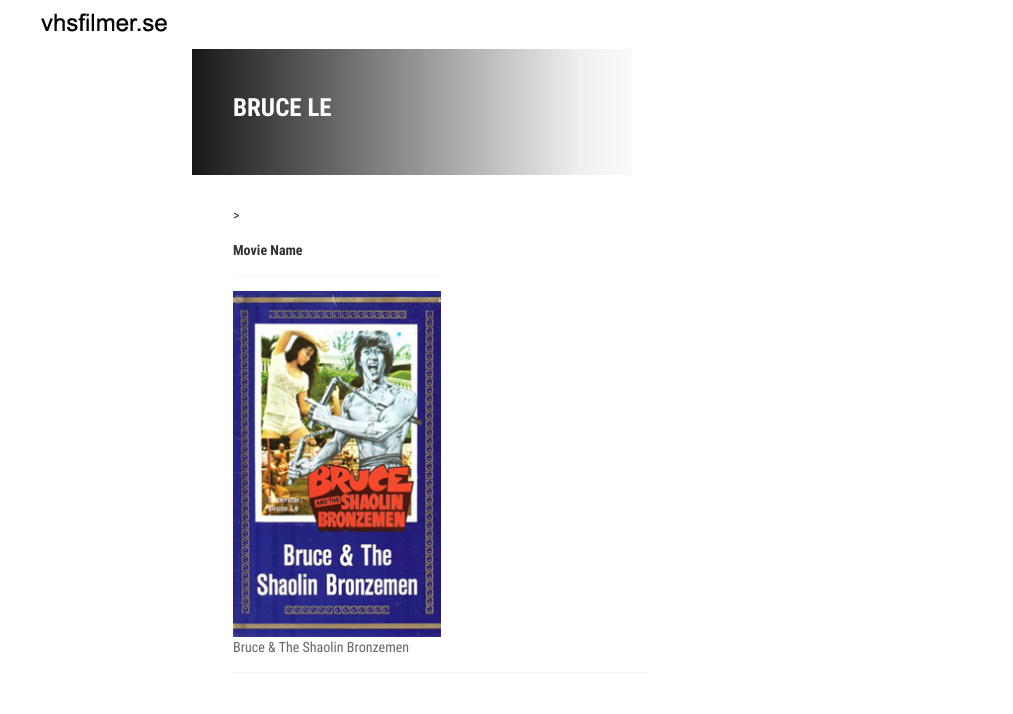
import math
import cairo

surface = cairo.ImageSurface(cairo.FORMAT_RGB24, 1013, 714)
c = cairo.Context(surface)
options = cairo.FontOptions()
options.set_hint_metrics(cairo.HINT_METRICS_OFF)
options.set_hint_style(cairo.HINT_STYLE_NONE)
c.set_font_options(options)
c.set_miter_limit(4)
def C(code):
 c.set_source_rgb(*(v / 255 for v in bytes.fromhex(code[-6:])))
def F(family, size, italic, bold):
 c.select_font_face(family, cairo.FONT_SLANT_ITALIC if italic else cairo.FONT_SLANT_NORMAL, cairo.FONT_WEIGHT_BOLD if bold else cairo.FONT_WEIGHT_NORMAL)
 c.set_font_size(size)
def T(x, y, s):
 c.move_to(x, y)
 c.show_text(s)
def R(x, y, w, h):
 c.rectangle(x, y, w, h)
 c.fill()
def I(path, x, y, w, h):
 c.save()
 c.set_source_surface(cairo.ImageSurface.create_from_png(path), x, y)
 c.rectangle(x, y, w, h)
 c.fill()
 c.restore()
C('ffffff')
c.paint()
I('1.png',41,13,126,19)
gradient = cairo.LinearGradient(192,112,648,112)
gradient.add_color_stop_rgba(0,0,0,0,.91)
gradient.add_color_stop_rgba(.85,0,0,0,.06)
gradient.add_color_stop_rgba(1,0,0,0,.01)
c.set_source(gradient)
R(192,49,440,126)
F('Roboto Condensed',25,0,1)
C('ffffff')
T(233,116,'BRUCE LE')
F('Roboto Condensed',14,0,0)
C('333333')
T(233,220,'>')
C('f6f6f6')
R(233,275,208,1)
F('Roboto Condensed',14,0,1)
C('333333')
T(233,255,'Movie Name')
C('f6f6f6')
R(233,672,415,1)
I('2.png',233,291,208,346)
F('Roboto Condensed',14,0,0)
C('666666')
T(233,652,'Bruce & The Shaolin Bronzemen')
surface.write_to_png('o.png')
